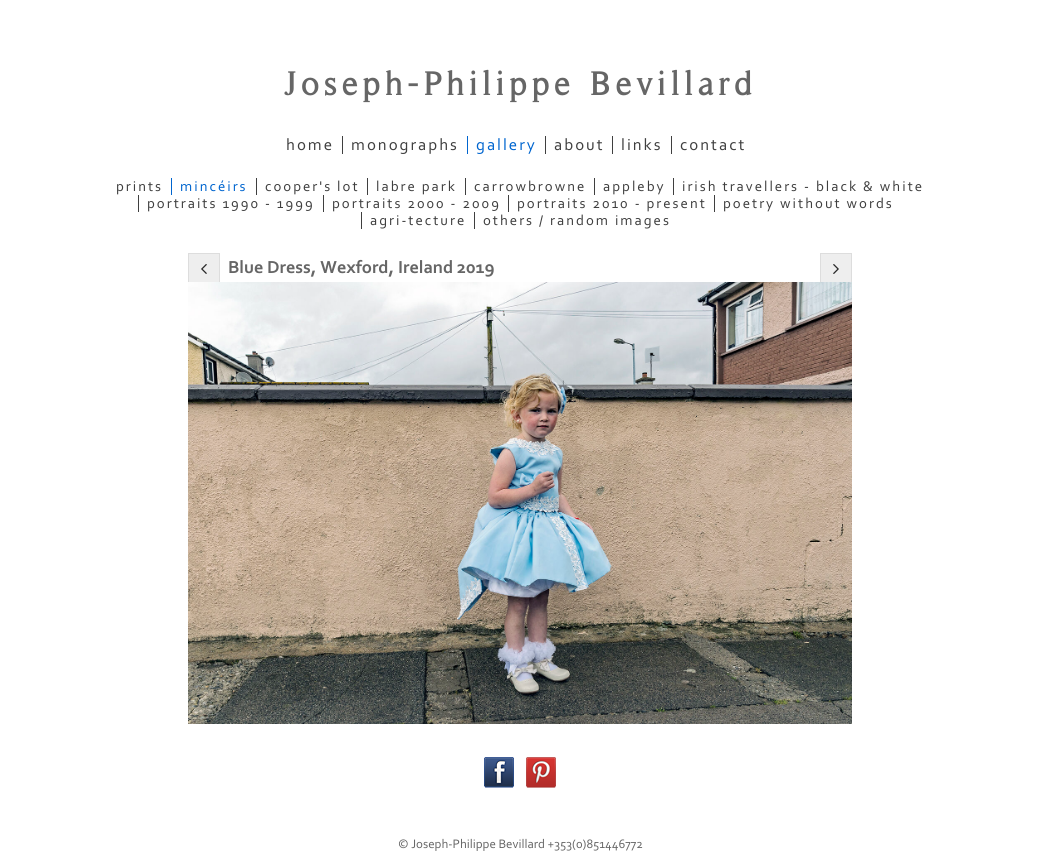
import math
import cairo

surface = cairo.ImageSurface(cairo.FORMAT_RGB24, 1040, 860)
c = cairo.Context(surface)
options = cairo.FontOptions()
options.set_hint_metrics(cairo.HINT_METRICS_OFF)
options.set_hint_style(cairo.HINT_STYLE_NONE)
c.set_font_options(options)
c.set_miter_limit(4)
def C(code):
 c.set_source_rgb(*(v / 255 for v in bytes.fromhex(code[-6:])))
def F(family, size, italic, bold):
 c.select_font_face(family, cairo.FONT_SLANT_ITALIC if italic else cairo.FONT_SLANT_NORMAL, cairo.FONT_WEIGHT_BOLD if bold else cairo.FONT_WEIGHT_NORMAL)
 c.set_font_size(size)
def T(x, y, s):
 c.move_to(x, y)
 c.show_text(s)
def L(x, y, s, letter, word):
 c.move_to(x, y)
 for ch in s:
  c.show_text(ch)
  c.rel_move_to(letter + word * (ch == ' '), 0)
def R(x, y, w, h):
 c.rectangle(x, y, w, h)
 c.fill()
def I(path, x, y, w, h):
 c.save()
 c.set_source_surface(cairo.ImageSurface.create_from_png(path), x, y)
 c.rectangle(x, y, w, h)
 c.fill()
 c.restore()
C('ffffff')
c.paint()
F('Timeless',33.5,0,1)
C('666666')
L(284,95,'Joseph-Philippe Bevillard',5,0)
F('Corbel',16.75,0,0)
C('3f3f3f')
L(286,150,'home',2,0)
R(342,136,1,18)
L(351,150,'monographs',2,0)
C('0065cf')
R(467,136,1,18)
L(476,150,'gallery',2,0)
C('3f3f3f')
R(545,136,1,18)
L(554,150,'about',2,0)
R(612,136,1,18)
L(621,150,'links',2,0)
R(671,136,1,18)
L(680,150,'contact',2,0)
F('Corbel',14.75,0,0)
L(116,191,'prints',2,0)
C('0065cf')
R(171,178,1,17)
L(180,191,'mincéirs',2,0)
C('3f3f3f')
R(256,178,1,17)
L(265,191,'cooper\'s lot',2,0)
R(367,178,1,17)
L(376,191,'labre park',2,0)
R(465,178,1,17)
L(474,191,'carrowbrowne',2,0)
R(594,178,1,17)
L(603,191,'appleby',2,0)
R(673,178,1,17)
L(682,191,'irish travellers - black & white',2,0)
R(138,195,1,17)
L(147,208,'portraits 1990 - 1999',2,0)
R(323,195,1,17)
L(332,208,'portraits 2000 - 2009',2,0)
R(508,195,1,17)
L(517,208,'portraits 2010 - present',2,0)
R(714,195,1,17)
L(723,208,'poetry without words',2,0)
R(361,212,1,17)
L(370,225,'agri-tecture',2,0)
R(474,212,1,17)
L(483,225,'others / random images',2,0)
C('eeeeee')
R(189,254,30,28)
c.rectangle(188.5,253.5,31,31)
C('dddddd')
c.set_line_width(1)
c.stroke()
I('1.png',201,264,6,10)
C('eeeeee')
R(821,254,30,28)
c.rectangle(820.5,253.5,31,31)
C('dddddd')
c.stroke()
I('2.png',833,264,6,10)
F('Corbel',18.25,0,1)
C('666666')
T(228,273,'Blue Dress, Wexford, Ireland 2019')
I('3.png',188,282,664,442)
I('4.png',484,757,30,31)
I('5.png',526,757,30,31)
F('Corbel',12.9,0,0)
T(398,848,'© Joseph-Philippe Bevillard +353(0)851446772')
surface.write_to_png('o.png')
